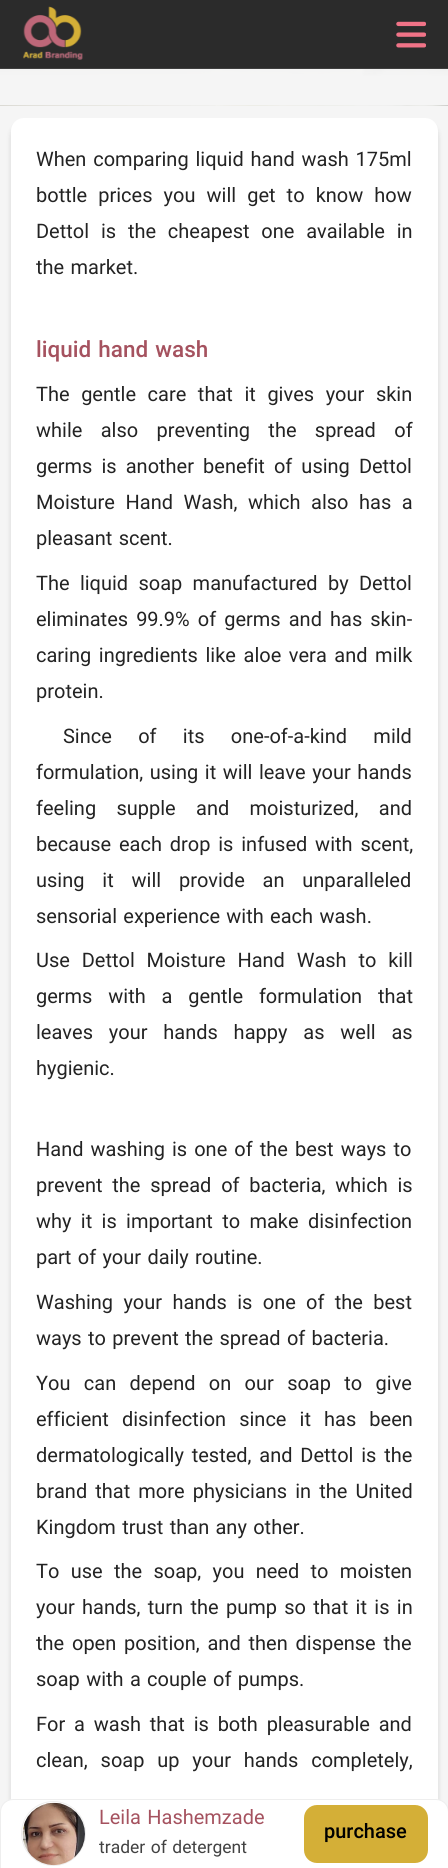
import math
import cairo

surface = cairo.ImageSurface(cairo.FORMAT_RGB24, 448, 1868)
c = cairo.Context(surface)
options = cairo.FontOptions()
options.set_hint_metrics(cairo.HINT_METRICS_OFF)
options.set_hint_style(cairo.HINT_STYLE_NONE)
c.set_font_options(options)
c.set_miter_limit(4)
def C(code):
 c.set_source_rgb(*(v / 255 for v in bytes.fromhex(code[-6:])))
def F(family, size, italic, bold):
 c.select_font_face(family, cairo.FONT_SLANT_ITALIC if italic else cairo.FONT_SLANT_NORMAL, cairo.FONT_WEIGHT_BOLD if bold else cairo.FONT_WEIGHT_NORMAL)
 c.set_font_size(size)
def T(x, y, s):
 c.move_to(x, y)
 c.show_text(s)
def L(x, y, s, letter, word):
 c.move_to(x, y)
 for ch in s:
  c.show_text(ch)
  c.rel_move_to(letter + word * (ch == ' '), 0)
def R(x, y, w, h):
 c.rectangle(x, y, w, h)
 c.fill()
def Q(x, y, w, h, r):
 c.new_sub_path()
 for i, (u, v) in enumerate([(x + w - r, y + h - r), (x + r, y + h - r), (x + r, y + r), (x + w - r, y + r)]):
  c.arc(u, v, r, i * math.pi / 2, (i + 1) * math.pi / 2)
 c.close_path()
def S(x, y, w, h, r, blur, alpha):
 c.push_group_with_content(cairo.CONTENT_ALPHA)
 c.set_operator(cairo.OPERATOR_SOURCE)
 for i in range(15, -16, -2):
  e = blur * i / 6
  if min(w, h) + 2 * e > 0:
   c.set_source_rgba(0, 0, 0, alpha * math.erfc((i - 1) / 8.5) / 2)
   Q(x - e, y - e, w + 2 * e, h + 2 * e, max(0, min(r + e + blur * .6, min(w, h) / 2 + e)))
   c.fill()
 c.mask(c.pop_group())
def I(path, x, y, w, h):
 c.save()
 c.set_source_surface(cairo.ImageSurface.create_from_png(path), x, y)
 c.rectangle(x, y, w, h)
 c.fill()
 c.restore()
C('f5f5f5')
c.paint()
C('2b2b2b')
R(0,0,448,68)
C('3f3f3f')
R(0,68,448,1)
I('1.png',23,6,60,54)
I('2.png',396,21,30,27)
I('3.png',0,69,448,37)
C('212121')
S(11,123,427,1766,13,2.5,.15)
C('ffffff')
Q(11,118,427,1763,13)
c.fill()
F('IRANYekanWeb',20,0,0)
C('232323')
L(36,166,'When comparing liquid hand wash 175ml',0,.5)
L(36,202,'bottle prices you will get to know how',0,4.75)
L(36,238,'Dettol is the cheapest one available in',0,5.5)
T(36,274,'the market.')
F('IRANYekanWeb',22.5,0,1)
C('a5525f')
T(36,357,'liquid hand wash')
F('IRANYekanWeb',20,0,0)
C('232323')
L(36,401,'The gentle care that it gives your skin',0,5.25)
L(36,437,'while also preventing the spread of',0,12)
L(36,473,'germs is another benefit of using Dettol',0,2.75)
L(36,509,'Moisture Hand Wash, which also has a',0,4.25)
T(36,545,'pleasant scent.')
L(36,590,'The liquid soap manufactured by Dettol',0,4)
L(36,626,'eliminates 99.9% of germs and has skin-',0,1.75)
L(36,662,'caring ingredients like aloe vera and milk',0,1.25)
T(36,698,'protein.')
L(63,743,'Since of its one-of-a-kind mild',0,20)
L(36,779,'formulation, using it will leave your hands',0,.25)
L(36,815,'feeling supple and moisturized, and',0,14)
L(36,851,'because each drop is infused with scent,',0,1.5)
L(36,887,'using it will provide an unparalleled',0,11.5)
T(36,923,'sensorial experience with each wash.')
L(36,967,'Use Dettol Moisture Hand Wash to kill',0,5.5)
L(36,1003,'germs with a gentle formulation that',0,9.5)
L(36,1039,'leaves your hands happy as well as',0,9.5)
T(36,1075,'hygienic.')
L(36,1156,'Hand washing is one of the best ways to',0,.75)
L(36,1192,'prevent the spread of bacteria, which is',0,3.5)
L(36,1228,'why it is important to make disinfection',0,3)
T(36,1264,'part of your daily routine.')
L(36,1309,'Washing your hands is one of the best',0,4)
T(36,1345,'ways to prevent the spread of bacteria.')
L(36,1390,'You can depend on our soap to give',0,7)
L(36,1426,'efficient disinfection since it has been',0,6.75)
L(36,1462,'dermatologically tested, and Dettol is the',0,1.5)
L(36,1498,'brand that more physicians in the United',0,1.75)
T(36,1534,'Kingdom trust than any other.')
L(36,1578,'To use the soap, you need to moisten',0,5)
L(36,1614,'your hands, turn the pump so that it is in',0,1)
L(36,1650,'the open position, and then dispense the',0,1.5)
T(36,1686,'soap with a couple of pumps.')
L(36,1731,'For a wash that is both pleasurable and',0,2.5)
L(36,1767,'clean, soap up your hands completely,',0,6.5)
C('ffffff')
c.new_path()
c.move_to(13,1799.5)
c.line_to(436,1799.5)
c.curve_to(443,1799.5,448.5,1805,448.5,1812)
c.line_to(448.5,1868.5)
c.line_to(.5,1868.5)
c.line_to(.5,1812)
c.curve_to(.5,1805,6,1799.5,13,1799.5)
c.close_path()
c.fill_preserve()
C('eeeeee')
c.set_line_width(1)
c.stroke()
c.arc(53.5,1833.5,32,0,2 * math.pi)
c.stroke()
I('4.png',22,1802,63,64)
C('a5525f')
T(99,1824,'Leila Hashemzade')
F('IRANYekanWeb',17.5,0,0)
C('424242')
T(99,1853,'trader of detergent')
C('d4af37')
Q(304,1805,124,58,13)
c.fill()
F('IRANYekanWeb',20,0,1)
C('000000')
T(324,1838,'purchase')
surface.write_to_png('o.png')
